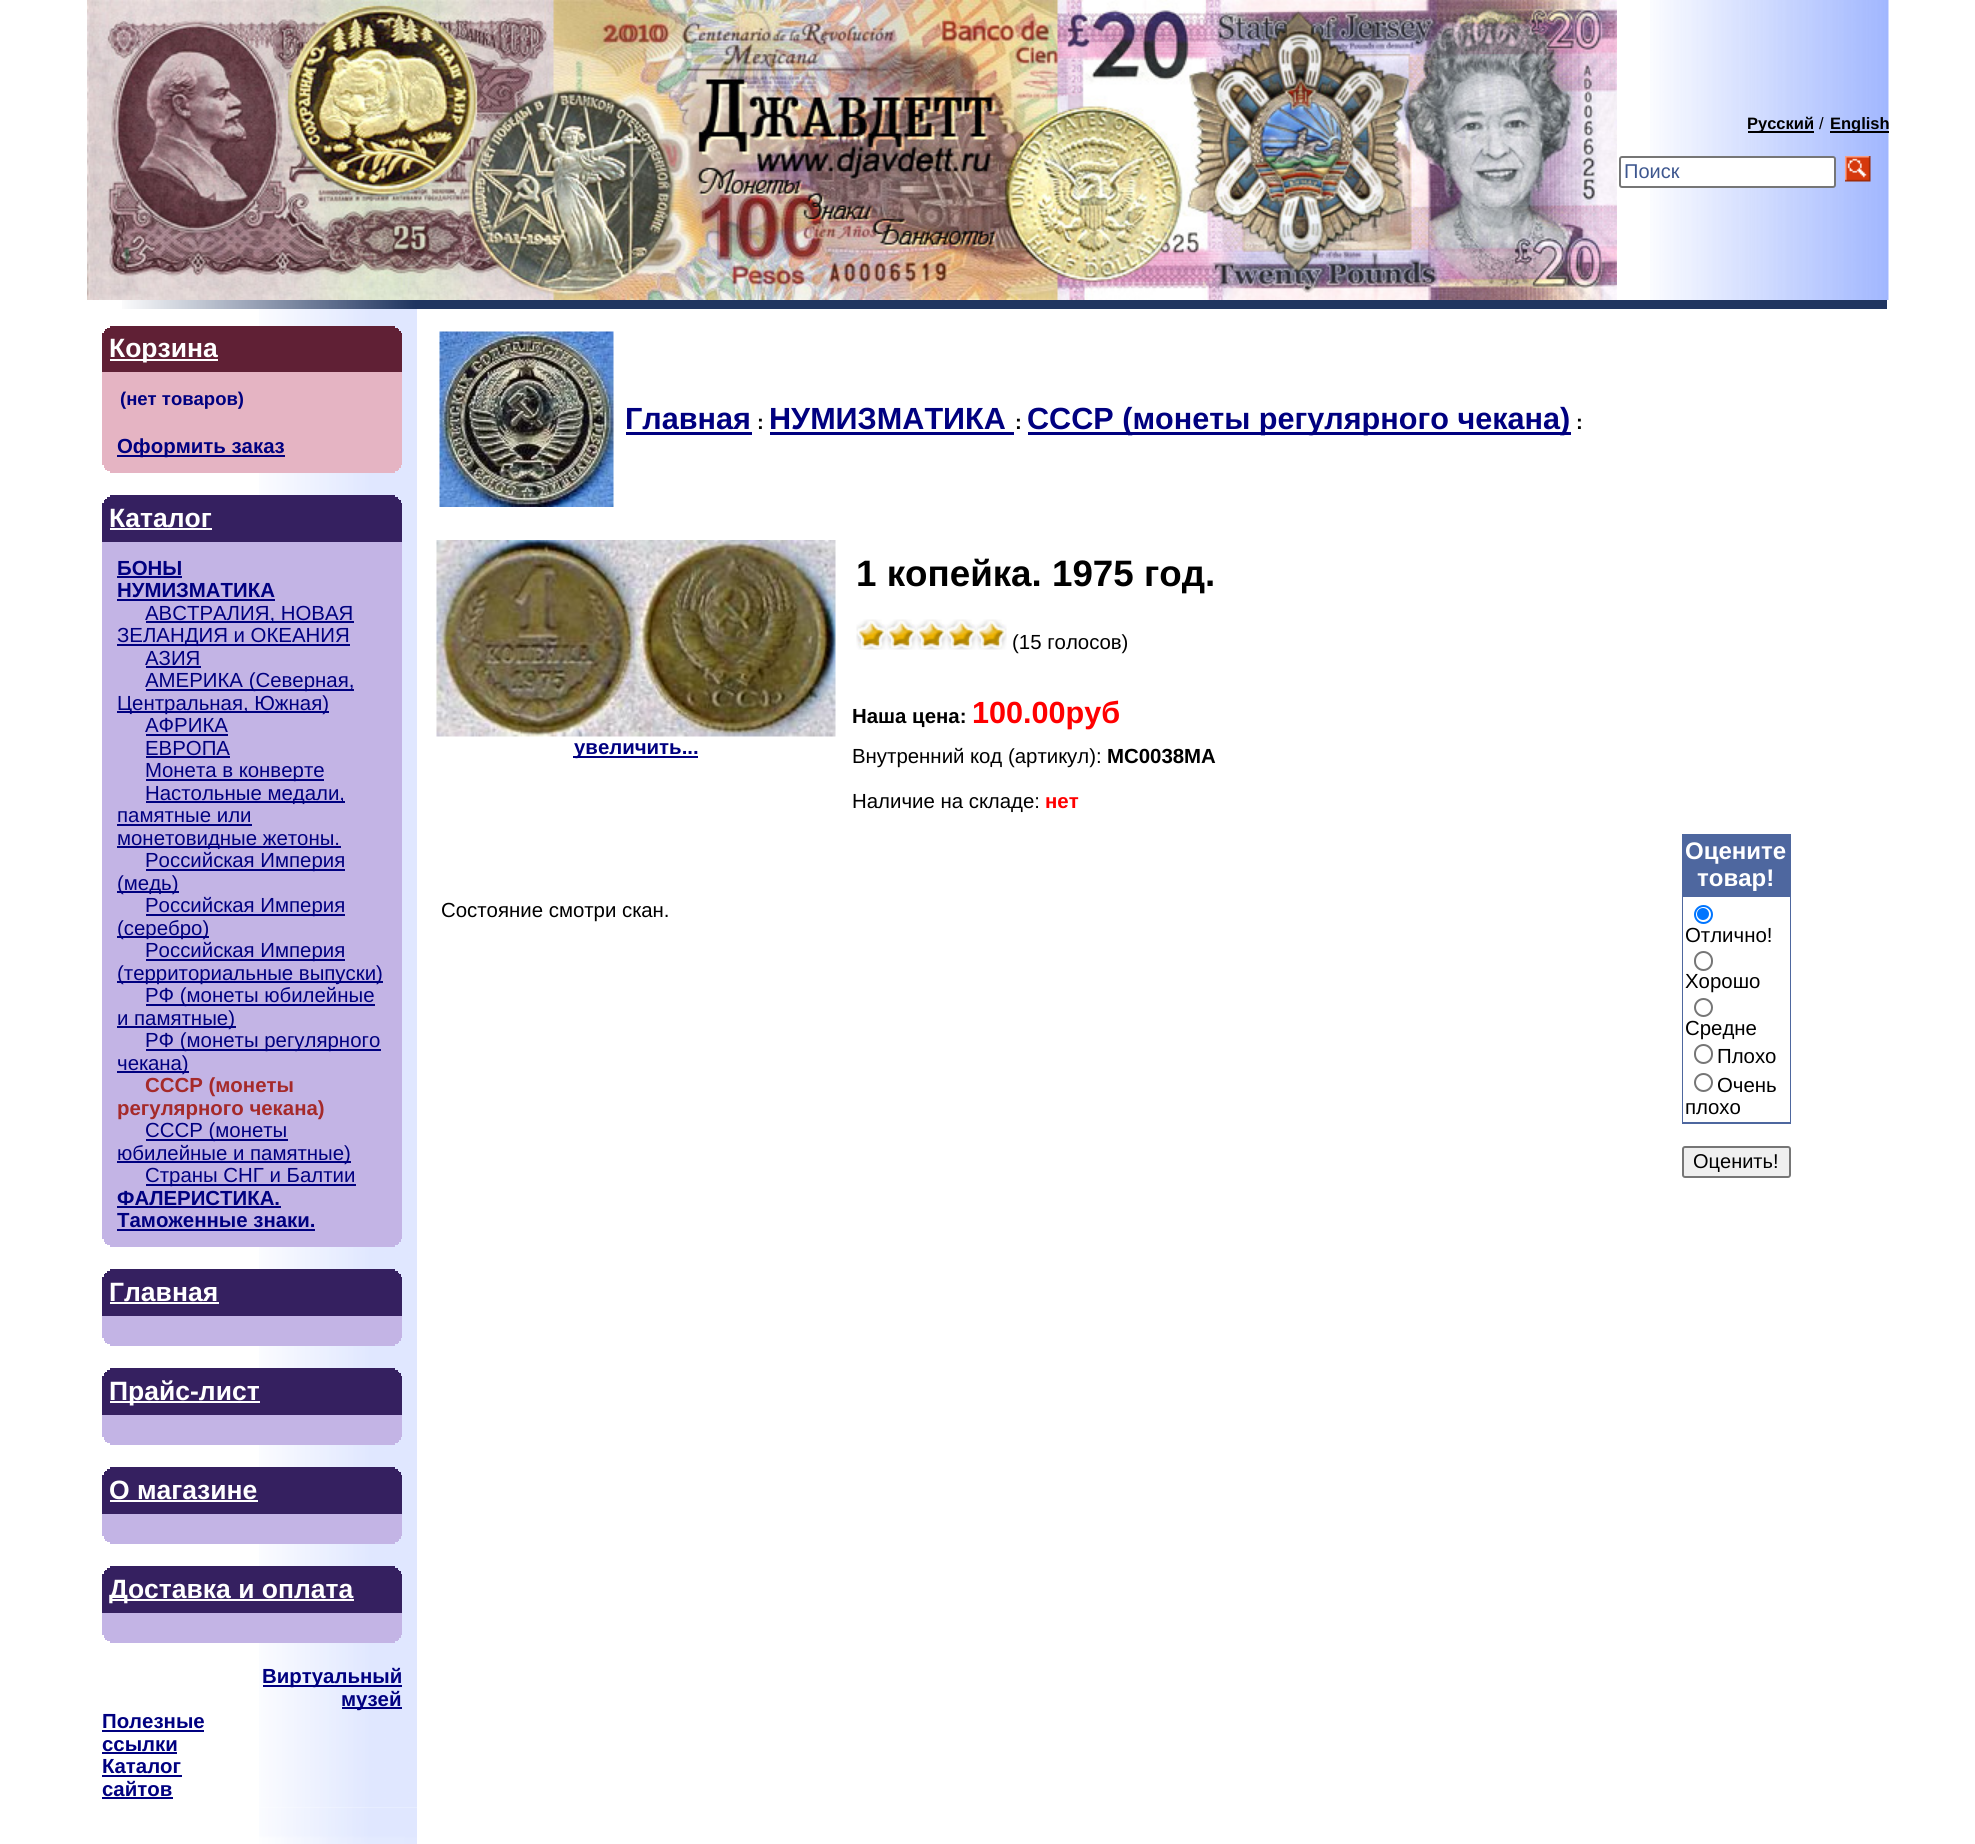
import math
import cairo

surface = cairo.ImageSurface(cairo.FORMAT_RGB24, 1975, 1844)
c = cairo.Context(surface)
options = cairo.FontOptions()
options.set_hint_metrics(cairo.HINT_METRICS_OFF)
options.set_hint_style(cairo.HINT_STYLE_NONE)
c.set_font_options(options)
c.set_miter_limit(4)
def C(code):
 c.set_source_rgb(*(v / 255 for v in bytes.fromhex(code[-6:])))
def F(family, size, italic, bold):
 c.select_font_face(family, cairo.FONT_SLANT_ITALIC if italic else cairo.FONT_SLANT_NORMAL, cairo.FONT_WEIGHT_BOLD if bold else cairo.FONT_WEIGHT_NORMAL)
 c.set_font_size(size)
def T(x, y, s):
 c.move_to(x, y)
 c.show_text(s)
def R(x, y, w, h):
 c.rectangle(x, y, w, h)
 c.fill()
def Q(x, y, w, h, r):
 c.new_sub_path()
 for i, (u, v) in enumerate([(x + w - r, y + h - r), (x + r, y + h - r), (x + r, y + r), (x + w - r, y + r)]):
  c.arc(u, v, r, i * math.pi / 2, (i + 1) * math.pi / 2)
 c.close_path()
def I(path, x, y, w, h):
 c.save()
 c.set_source_surface(cairo.ImageSurface.create_from_png(path), x, y)
 c.rectangle(x, y, w, h)
 c.fill()
 c.restore()
C('ffffff')
c.paint()
I('1.png',87,0,1530,300)
I('2.png',1650,0,239,300)
C('000000')
R(1748,131,66,2)
F('Liberation Sans',16.5,0,1)
T(1747,129,'Русский')
F('Liberation Sans',16.5,0,0)
T(1819,129,'/')
R(1830,131,59,2)
F('Liberation Sans',16.5,0,1)
T(1830,129,'English')
C('ffffff')
Q(1620,157,215,30,2)
c.fill_preserve()
C('767676')
c.stroke()
F('Liberation Sans',20,0,0)
C('3e578f')
T(1624,178,'Поиск')
I('3.png',1845,156,26,26)
I('4.png',122,300,295,9)
C('203560')
R(417,300,1470,9)
I('5.png',259,309,158,1499)
C('602035')
R(102,326,300,46)
C('ffffff')
R(102,326,8,2)
R(102,328,5,1)
R(102,329,3,2)
R(102,330,2,3)
C('e0e7ff')
R(395,326,7,2)
R(398,328,5,1)
R(399,329,3,2)
R(401,330,1,3)
C('ffffff')
R(110,359,108,2)
F('Liberation Sans',26.5,0,1)
T(109,357,'Корзина')
C('e5b4c3')
R(102,372,300,101)
F('Liberation Sans',18.5,0,1)
C('000080')
T(120,405,'(нет товаров)')
R(117,455,168,2)
F('Liberation Sans',20.4,0,1)
T(117,453,'Оформить заказ')
C('ffffff')
R(102,465,2,3)
R(102,468,3,2)
R(102,470,5,1)
R(102,471,8,2)
C('e0e7ff')
R(401,465,1,3)
R(399,468,3,2)
R(398,470,5,2)
R(395,471,7,2)
C('352060')
R(102,495,300,47)
C('ffffff')
R(102,495,8,2)
R(102,497,5,2)
R(102,499,3,1)
R(102,500,2,3)
C('e0e7ff')
R(395,495,7,2)
R(398,497,5,2)
R(399,499,3,1)
R(401,500,1,3)
F('Liberation Sans',26.5,0,1)
C('ffffff')
T(109,527,'Каталог')
R(110,528,102,2)
C('c3b4e5')
R(102,542,300,705)
F('Liberation Sans',20.4,0,1)
C('000080')
T(117,575,'БОНЫ')
R(117,576,65,2)
T(117,597,'НУМИЗМАТИКА')
R(117,599,158,2)
R(146,621,208,2)
F('Liberation Sans',20.4,0,0)
T(145,620,'АВСТРАЛИЯ, НОВАЯ')
R(117,644,233,2)
T(117,642,'ЗЕЛАНДИЯ и ОКЕАНИЯ')
T(145,665,'АЗИЯ')
R(146,666,55,2)
R(146,689,208,2)
T(145,687,'АМЕРИКА (Северная,')
R(117,711,212,2)
T(117,710,'Центральная, Южная)')
T(145,732,'АФРИКА')
R(146,734,82,2)
T(145,755,'ЕВРОПА')
R(146,756,84,2)
R(146,779,178,2)
T(145,777,'Монета в конверте')
R(146,801,199,2)
T(145,800,'Настольные медали,')
T(117,822,'памятные или')
R(117,824,135,2)
R(117,846,224,2)
T(117,845,'монетовидные жетоны.')
R(146,869,199,2)
T(145,867,'Российская Империя')
R(117,891,62,2)
T(117,890,'(медь)')
R(146,914,199,2)
T(145,912,'Российская Империя')
R(117,936,92,2)
T(117,935,'(серебро)')
R(146,959,199,2)
T(145,957,'Российская Империя')
R(117,981,266,2)
T(117,980,'(территориальные выпуски)')
R(146,1004,229,2)
T(145,1002,'РФ (монеты юбилейные')
R(117,1026,119,2)
T(117,1025,'и памятные)')
R(146,1049,235,2)
T(145,1047,'РФ (монеты регулярного')
R(117,1071,72,2)
T(117,1070,'чекана)')
F('Liberation Sans',20.4,0,1)
C('a52a2a')
T(145,1092,'СССР (монеты')
T(117,1115,'регулярного чекана)')
C('000080')
R(146,1139,142,2)
F('Liberation Sans',20.4,0,0)
T(145,1137,'СССР (монеты')
R(117,1161,234,2)
T(117,1160,'юбилейные и памятные)')
R(146,1184,210,2)
T(145,1182,'Страны СНГ и Балтии')
F('Liberation Sans',20.4,0,1)
T(117,1205,'ФАЛЕРИСТИКА.')
R(117,1206,164,2)
T(117,1227,'Таможенные знаки.')
R(117,1229,198,2)
C('ffffff')
R(102,1239,2,3)
R(102,1242,3,2)
R(102,1244,5,1)
R(102,1245,8,2)
C('e0e7ff')
R(401,1239,1,3)
R(399,1242,3,2)
R(398,1244,5,2)
R(395,1245,7,2)
C('352060')
R(102,1269,300,47)
C('ffffff')
R(102,1269,8,2)
R(102,1271,5,2)
R(102,1273,3,1)
R(102,1274,2,3)
C('e0e7ff')
R(395,1269,7,2)
R(398,1271,5,2)
R(399,1273,3,1)
R(401,1274,1,3)
F('Liberation Sans',26.5,0,1)
C('ffffff')
T(109,1301,'Главная')
R(110,1302,109,2)
C('c3b4e5')
R(102,1316,300,30)
C('ffffff')
R(102,1338,2,3)
R(102,1341,3,2)
R(102,1343,5,1)
R(102,1344,8,2)
C('e0e7ff')
R(401,1338,1,3)
R(399,1341,3,2)
R(398,1343,5,2)
R(395,1344,7,2)
C('352060')
R(102,1368,300,47)
C('ffffff')
R(102,1368,8,2)
R(102,1370,5,2)
R(102,1372,3,1)
R(102,1373,2,3)
C('e0e7ff')
R(395,1368,7,2)
R(398,1370,5,2)
R(399,1372,3,1)
R(401,1373,1,3)
C('ffffff')
R(110,1401,150,2)
T(109,1400,'Прайс-лист')
C('c3b4e5')
R(102,1415,300,30)
C('ffffff')
R(102,1437,2,3)
R(102,1440,3,2)
R(102,1442,5,1)
R(102,1443,8,2)
C('e0e7ff')
R(401,1437,1,3)
R(399,1440,3,2)
R(398,1442,5,2)
R(395,1443,7,2)
C('352060')
R(102,1467,300,47)
C('ffffff')
R(102,1467,8,2)
R(102,1469,5,2)
R(102,1471,3,1)
R(102,1472,2,3)
C('e0e7ff')
R(395,1467,7,2)
R(398,1469,5,2)
R(399,1471,3,1)
R(401,1472,1,3)
C('ffffff')
T(109,1499,'О магазине')
R(110,1500,148,2)
C('c3b4e5')
R(102,1514,300,30)
C('ffffff')
R(102,1536,2,3)
R(102,1539,3,2)
R(102,1541,5,1)
R(102,1542,8,2)
C('e0e7ff')
R(401,1536,1,3)
R(399,1539,3,2)
R(398,1541,5,2)
R(395,1542,7,2)
C('352060')
R(102,1566,300,47)
C('ffffff')
R(102,1566,8,2)
R(102,1568,5,2)
R(102,1570,3,1)
R(102,1571,2,3)
C('e0e7ff')
R(395,1566,7,2)
R(398,1568,5,2)
R(399,1570,3,1)
R(401,1571,1,3)
C('ffffff')
R(110,1599,244,2)
T(109,1598,'Доставка и оплата')
C('c3b4e5')
R(102,1613,300,30)
C('ffffff')
R(102,1635,2,3)
R(102,1638,3,2)
R(102,1640,5,1)
R(102,1641,8,2)
C('e0e7ff')
R(401,1635,1,3)
R(399,1638,3,2)
R(398,1640,5,2)
R(395,1641,7,2)
C('000080')
R(263,1685,139,2)
F('Liberation Sans',20.4,0,1)
T(262,1683,'Виртуальный')
R(342,1707,60,2)
T(341,1706,'музей')
T(102,1728,'Полезные')
R(102,1730,102,2)
T(102,1751,'ссылки')
R(102,1752,75,2)
T(102,1773,'Каталог')
R(102,1775,80,2)
T(102,1796,'сайтов')
R(102,1797,71,2)
I('6.png',259,1807,158,37)
I('7.png',439,331,175,176)
F('Liberation Sans',30.6,0,1)
T(625,429,'Главная')
F('Liberation Sans',20.4,0,1)
C('000000')
T(757,429,':')
C('000080')
R(626,432,126,3)
F('Liberation Sans',30.6,0,1)
T(769,429,'НУМИЗМАТИКА')
F('Liberation Sans',20.4,0,1)
C('000000')
T(1015,429,':')
C('000080')
R(770,432,244,3)
R(1028,432,543,3)
F('Liberation Sans',30.6,0,1)
T(1027,429,'СССР (монеты регулярного чекана)')
F('Liberation Sans',20.4,0,1)
C('000000')
T(1576,429,':')
I('8.png',436,540,400,197)
C('000080')
R(573,756,125,2)
T(574,754,'увеличить...')
F('Liberation Sans',36.75,0,1)
C('000000')
T(856,586,'1 копейка. 1975 год.')
I('9.png',856,619,31,31)
I('10.png',886,619,31,31)
I('10.png',916,619,31,31)
I('10.png',946,619,31,31)
I('10.png',976,619,31,31)
F('Liberation Sans',20.4,0,0)
T(1012,649,'(15 голосов)')
F('Liberation Sans',20.4,0,1)
T(852,723,'Наша цена:')
F('Liberation Sans',30.6,0,1)
C('ff0000')
T(972,723,'100.00руб')
F('Liberation Sans',20.4,0,0)
C('000000')
T(852,763,'Внутренний код (артикул):')
F('Liberation Sans',20.4,0,1)
T(1107,763,'МС0038МА')
F('Liberation Sans',20.4,0,0)
T(852,808,'Наличие на складе:')
F('Liberation Sans',20.4,0,1)
C('ff0000')
T(1045,808,'нет')
F('Liberation Sans',20.4,0,0)
C('000000')
T(441,917,'Состояние смотри скан.')
C('4e679f')
R(1682,834,109,290)
F('Liberation Sans',24,0,1)
C('ffffff')
T(1685,859,'Оцените')
T(1697,886,'товар!')
R(1683,897,107,225)
c.new_path()
c.arc(1703.5,914.5,8.5,0,2 * math.pi)
C('0075ff')
c.stroke()
c.arc(1703,914,6,0,2 * math.pi)
c.fill()
F('Liberation Sans',20.4,0,0)
C('000000')
T(1685,942,'Отлично!')
Q(1695,952,17,18,8.5)
C('767676')
c.stroke()
C('000000')
T(1685,988,'Хорошо')
c.new_path()
c.arc(1703.5,1007.5,8.5,0,2 * math.pi)
C('767676')
c.stroke()
C('000000')
T(1685,1035,'Средне')
Q(1695,1045,17,18,8.5)
C('767676')
c.stroke()
C('000000')
T(1717,1063,'Плохо')
c.new_path()
c.arc(1703.5,1082.5,8.5,0,2 * math.pi)
C('767676')
c.stroke()
C('000000')
T(1717,1092,'Очень')
T(1685,1114,'плохо')
C('efefef')
Q(1683,1147,107,30,2)
c.fill_preserve()
C('767676')
c.stroke()
F('Liberation Sans',20,0,0)
C('000000')
T(1693,1168,'Оценить!')
surface.write_to_png('o.png')
